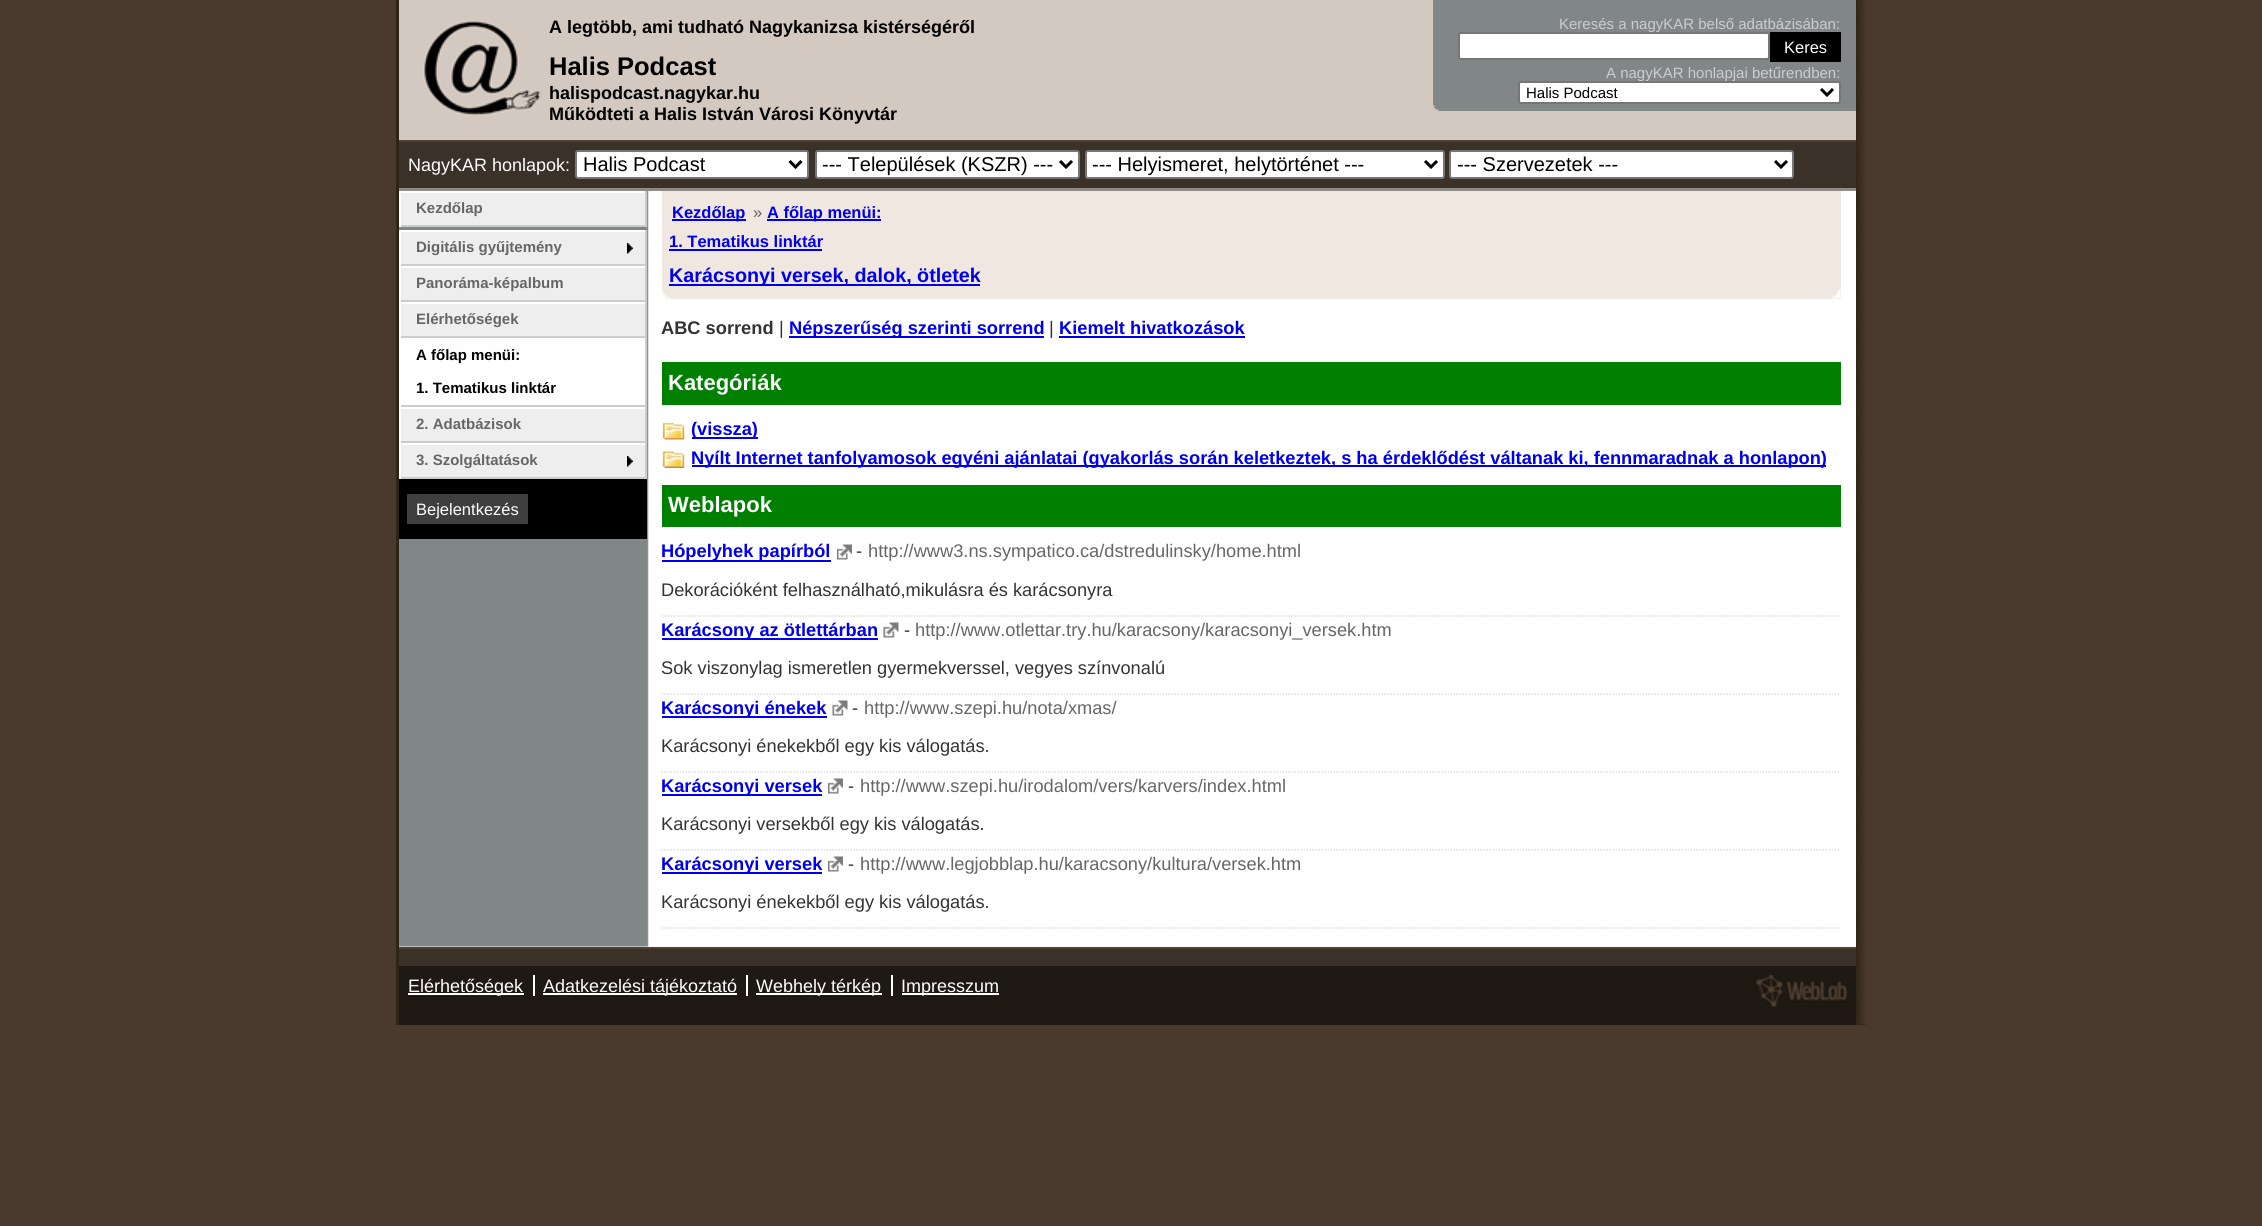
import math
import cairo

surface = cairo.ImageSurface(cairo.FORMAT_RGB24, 2262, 1226)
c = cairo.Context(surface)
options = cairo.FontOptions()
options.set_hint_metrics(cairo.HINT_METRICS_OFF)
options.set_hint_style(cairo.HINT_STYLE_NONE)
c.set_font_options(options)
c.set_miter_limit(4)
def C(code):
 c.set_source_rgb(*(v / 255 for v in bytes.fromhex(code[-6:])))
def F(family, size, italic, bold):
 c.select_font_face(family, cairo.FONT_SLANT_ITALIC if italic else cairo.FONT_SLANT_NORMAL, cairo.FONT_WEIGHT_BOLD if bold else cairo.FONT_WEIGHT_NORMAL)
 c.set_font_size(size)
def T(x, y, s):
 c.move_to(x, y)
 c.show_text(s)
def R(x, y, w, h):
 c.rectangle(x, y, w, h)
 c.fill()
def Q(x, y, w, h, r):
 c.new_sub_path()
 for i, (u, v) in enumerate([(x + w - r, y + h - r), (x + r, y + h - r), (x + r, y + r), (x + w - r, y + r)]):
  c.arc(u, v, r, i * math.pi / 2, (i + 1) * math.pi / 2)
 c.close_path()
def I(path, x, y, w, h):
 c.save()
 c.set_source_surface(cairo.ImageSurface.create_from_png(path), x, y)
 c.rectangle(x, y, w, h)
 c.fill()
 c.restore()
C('4a3a2d')
c.paint()
C('2f241a')
R(396,0,1470,1025)
I('1.png',1857,0,9,1025)
C('ffffff')
R(399,191,1457,756)
I('2.png',399,191,250,756)
C('d3c9c0')
R(399,0,1457,140)
C('8f8a86')
R(399,188,1457,3)
I('3.png',423,21,118,95)
F('Liberation Sans',18,0,1)
C('000000')
T(549,33,'A legtöbb, ami tudható Nagykanizsa kistérségéről')
F('Liberation Sans',25.5,0,1)
T(549,75,'Halis Podcast')
F('Liberation Sans',18,0,1)
T(549,99,'halispodcast.nagykar.hu')
T(549,120,'Működteti a Halis István Városi Könyvtár')
C('818787')
R(1433,0,423,111)
I('4.png',1433,105,6,6)
F('Liberation Sans',15,0,0)
C('cccccc')
T(1559,29,'Keresés a nagyKAR belső adatbázisában:')
C('ffffff')
Q(1459,33,310,26,2)
c.fill_preserve()
C('767676')
c.stroke()
C('000000')
R(1770,32,71,30)
F('Liberation Sans',16.5,0,0)
C('ffffff')
T(1784,53,'Keres')
F('Liberation Sans',15,0,0)
C('cccccc')
T(1606,78,'A nagyKAR honlapjai betűrendben:')
C('ffffff')
Q(1519,82,321,21,2)
c.fill_preserve()
C('767676')
c.stroke()
c.new_path()
c.move_to(1821,89)
c.line_to(1827,95)
c.line_to(1833,89)
C('000000')
c.set_line_width(3)
c.stroke()
T(1526,98,'Halis Podcast')
C('3a3128')
R(399,142,1457,46)
C('4f4031')
R(399,140,1457,2)
F('Liberation Sans',18,0,0)
C('ffffff')
T(408,171,'NagyKAR honlapok:')
Q(576,151,232,27,2)
c.fill_preserve()
C('767676')
c.set_line_width(2)
c.stroke()
c.new_path()
c.move_to(789.5,161)
c.line_to(795.5,167)
c.line_to(801.5,161)
C('000000')
c.set_line_width(3)
c.stroke()
F('Liberation Sans',20,0,0)
T(583,171,'Halis Podcast')
C('ffffff')
Q(816,151,263,27,2)
c.fill_preserve()
C('767676')
c.set_line_width(2)
c.stroke()
c.new_path()
c.move_to(1060,161)
c.line_to(1066,167)
c.line_to(1072,161)
C('000000')
c.set_line_width(3)
c.stroke()
T(822,171,'--- Települések (KSZR) ---')
C('ffffff')
Q(1086,151,358,27,2)
c.fill_preserve()
C('767676')
c.set_line_width(2)
c.stroke()
c.new_path()
c.move_to(1425,161)
c.line_to(1431,167)
c.line_to(1437,161)
C('000000')
c.set_line_width(3)
c.stroke()
T(1092,171,'--- Helyismeret, helytörténet ---')
C('ffffff')
Q(1450,151,343,27,2)
c.fill_preserve()
C('767676')
c.set_line_width(2)
c.stroke()
c.new_path()
c.move_to(1775,161)
c.line_to(1781,167)
c.line_to(1787,161)
C('000000')
c.set_line_width(3)
c.stroke()
T(1457,171,'--- Szervezetek ---')
C('eeeeee')
R(401,193,244,32)
C('ffffff')
R(399,191,248,2)
C('cccccc')
R(645,191,2,36)
R(399,225,248,2)
C('ffffff')
R(399,191,2,36)
F('Liberation Sans',15,0,1)
C('666666')
T(416,213,'Kezdőlap')
C('eeeeee')
R(401,232,244,32)
I('5.png',627,243,6,11)
C('ffffff')
R(399,230,248,2)
C('cccccc')
R(645,230,2,36)
R(399,264,248,2)
C('ffffff')
R(399,230,2,36)
C('666666')
T(416,252,'Digitális gyűjtemény')
C('eeeeee')
R(401,268,244,32)
C('ffffff')
R(399,266,248,2)
C('cccccc')
R(645,266,2,36)
R(399,300,248,2)
C('ffffff')
R(399,266,2,36)
C('666666')
T(416,288,'Panoráma-képalbum')
C('eeeeee')
R(401,304,244,32)
C('ffffff')
R(399,302,248,2)
C('cccccc')
R(645,302,2,105)
R(399,336,248,2)
C('ffffff')
R(399,302,2,36)
C('666666')
T(416,324,'Elérhetőségek')
C('fefefe')
R(401,338,244,67)
C('cccccc')
R(399,405,248,2)
C('ffffff')
R(399,338,2,69)
C('000000')
T(416,360,'A főlap menüi:')
T(416,393,'1. Tematikus linktár')
C('eeeeee')
R(401,409,244,32)
C('ffffff')
R(399,407,248,2)
C('cccccc')
R(645,407,2,36)
R(399,441,248,2)
C('ffffff')
R(399,407,2,36)
C('666666')
T(416,429,'2. Adatbázisok')
C('eeeeee')
R(401,445,244,32)
I('5.png',627,456,6,11)
C('ffffff')
R(399,443,248,2)
C('cccccc')
R(645,443,2,36)
R(399,477,248,2)
C('ffffff')
R(399,443,2,36)
C('666666')
T(416,465,'3. Szolgáltatások')
C('000000')
R(399,479,248,60)
C('3f3f3f')
R(407,494,121,30)
F('Liberation Sans',16.5,0,0)
C('ffffff')
T(416,515,'Bejelentkezés')
C('efe7e0')
R(662,191,1179,108)
I('6.png',662,291,9,8)
I('7.png',1831,289,10,10)
C('0000ee')
R(672,219,74,2)
F('Liberation Sans',16.5,0,1)
T(672,218,'Kezdőlap')
F('Liberation Sans',16.5,0,0)
C('5f5c59')
T(753,218,'»')
C('0000ee')
R(767,219,114,2)
F('Liberation Sans',16.5,0,1)
T(767,218,'A főlap menüi:')
T(669,247,'1. Tematikus linktár')
R(669,249,153,2)
R(669,284,311,2)
F('Liberation Sans',19.75,0,1)
T(669,282,'Karácsonyi versek, dalok, ötletek')
F('Liberation Sans',18.25,0,1)
C('333333')
T(661,334,'ABC sorrend')
F('Liberation Sans',18.25,0,0)
T(779,334,'|')
C('0000ee')
R(789,336,255,2)
F('Liberation Sans',18.25,0,1)
T(789,334,'Népszerűség szerinti sorrend')
F('Liberation Sans',18.25,0,0)
C('333333')
T(1049,334,'|')
F('Liberation Sans',18.25,0,1)
C('0000ee')
T(1059,334,'Kiemelt hivatkozások')
R(1059,336,186,2)
C('008000')
R(662,362,1179,43)
F('Liberation Sans',22,0,1)
C('ffffff')
T(668,390,'Kategóriák')
I('8.png',662,422,23,18)
C('0000ee')
R(692,437,66,2)
F('Liberation Sans',18.25,0,1)
T(691,435,'(vissza)')
I('9.png',662,451,23,17)
R(692,465,1134,2)
T(691,464,'Nyílt Internet tanfolyamosok egyéni ajánlatai (gyakorlás során keletkeztek, s ha érdeklődést váltanak ki, fennmaradnak a honlapon)')
C('008000')
R(662,485,1179,42)
F('Liberation Sans',22,0,1)
C('ffffff')
T(668,512,'Weblapok')
C('0000ee')
R(662,560,169,2)
F('Liberation Sans',18.25,0,1)
T(661,557,'Hópelyhek papírból')
I('10.png',837,544,15,16)
F('Liberation Sans',18.25,0,0)
C('333333')
T(856,557,'-')
C('666666')
T(868,557,'http://www3.ns.sympatico.ca/dstredulinsky/home.html')
c.new_path()
c.move_to(661.5,616)
c.line_to(1840.5,616)
C('dddddd')
c.set_line_width(1.5)
c.set_dash([1.5,1.5])
c.stroke()
C('333333')
T(661,596,'Dekorációként felhasználható,mikulásra és karácsonyra')
C('0000ee')
R(662,638,216,2)
F('Liberation Sans',18.25,0,1)
T(661,636,'Karácsony az ötlettárban')
I('11.png',883,622,16,16)
F('Liberation Sans',18.25,0,0)
C('333333')
T(904,636,'-')
C('666666')
T(915,636,'http://www.otlettar.try.hu/karacsony/karacsonyi_versek.htm')
c.new_path()
c.move_to(661.5,694)
c.line_to(1840.5,694)
C('dddddd')
c.stroke()
C('333333')
T(661,674,'Sok viszonylag ismeretlen gyermekverssel, vegyes színvonalú')
C('0000ee')
R(662,716,165,2)
F('Liberation Sans',18.25,0,1)
T(661,714,'Karácsonyi énekek')
I('11.png',832,700,16,16)
F('Liberation Sans',18.25,0,0)
C('333333')
T(852,714,'-')
C('666666')
T(864,714,'http://www.szepi.hu/nota/xmas/')
c.new_path()
c.move_to(661.5,772)
c.line_to(1840.5,772)
C('dddddd')
c.stroke()
C('333333')
T(661,752,'Karácsonyi énekekből egy kis válogatás.')
C('0000ee')
R(662,794,160,2)
F('Liberation Sans',18.25,0,1)
T(661,792,'Karácsonyi versek')
I('10.png',828,778,15,16)
F('Liberation Sans',18.25,0,0)
C('333333')
T(848,792,'-')
C('666666')
T(860,792,'http://www.szepi.hu/irodalom/vers/karvers/index.html')
c.new_path()
c.move_to(661.5,850)
c.line_to(1840.5,850)
C('dddddd')
c.stroke()
C('333333')
T(661,830,'Karácsonyi versekből egy kis válogatás.')
C('0000ee')
R(662,872,160,2)
F('Liberation Sans',18.25,0,1)
T(661,870,'Karácsonyi versek')
I('10.png',828,856,15,16)
F('Liberation Sans',18.25,0,0)
C('333333')
T(848,870,'-')
C('666666')
T(860,870,'http://www.legjobblap.hu/karacsony/kultura/versek.htm')
c.new_path()
c.move_to(661.5,928)
c.line_to(1840.5,928)
C('dddddd')
c.stroke()
C('333333')
T(661,908,'Karácsonyi énekekből egy kis válogatás.')
C('1f1913')
R(399,966,1457,59)
C('3a3128')
R(399,949,1457,17)
C('4f4031')
R(399,947,1457,2)
C('ffffff')
R(408,993,116,2)
F('Liberation Sans',18,0,0)
T(408,992,'Elérhetőségek')
R(543,993,194,2)
T(543,992,'Adatkezelési tájékoztató')
C('fefefe')
R(533,975,2,21)
C('ffffff')
R(756,993,126,2)
T(756,992,'Webhely térkép')
C('fefefe')
R(746,975,2,21)
R(891,975,2,21)
C('ffffff')
R(902,993,97,2)
T(901,992,'Impresszum')
I('12.png',1756,975,91,32)
surface.write_to_png('o.png')
